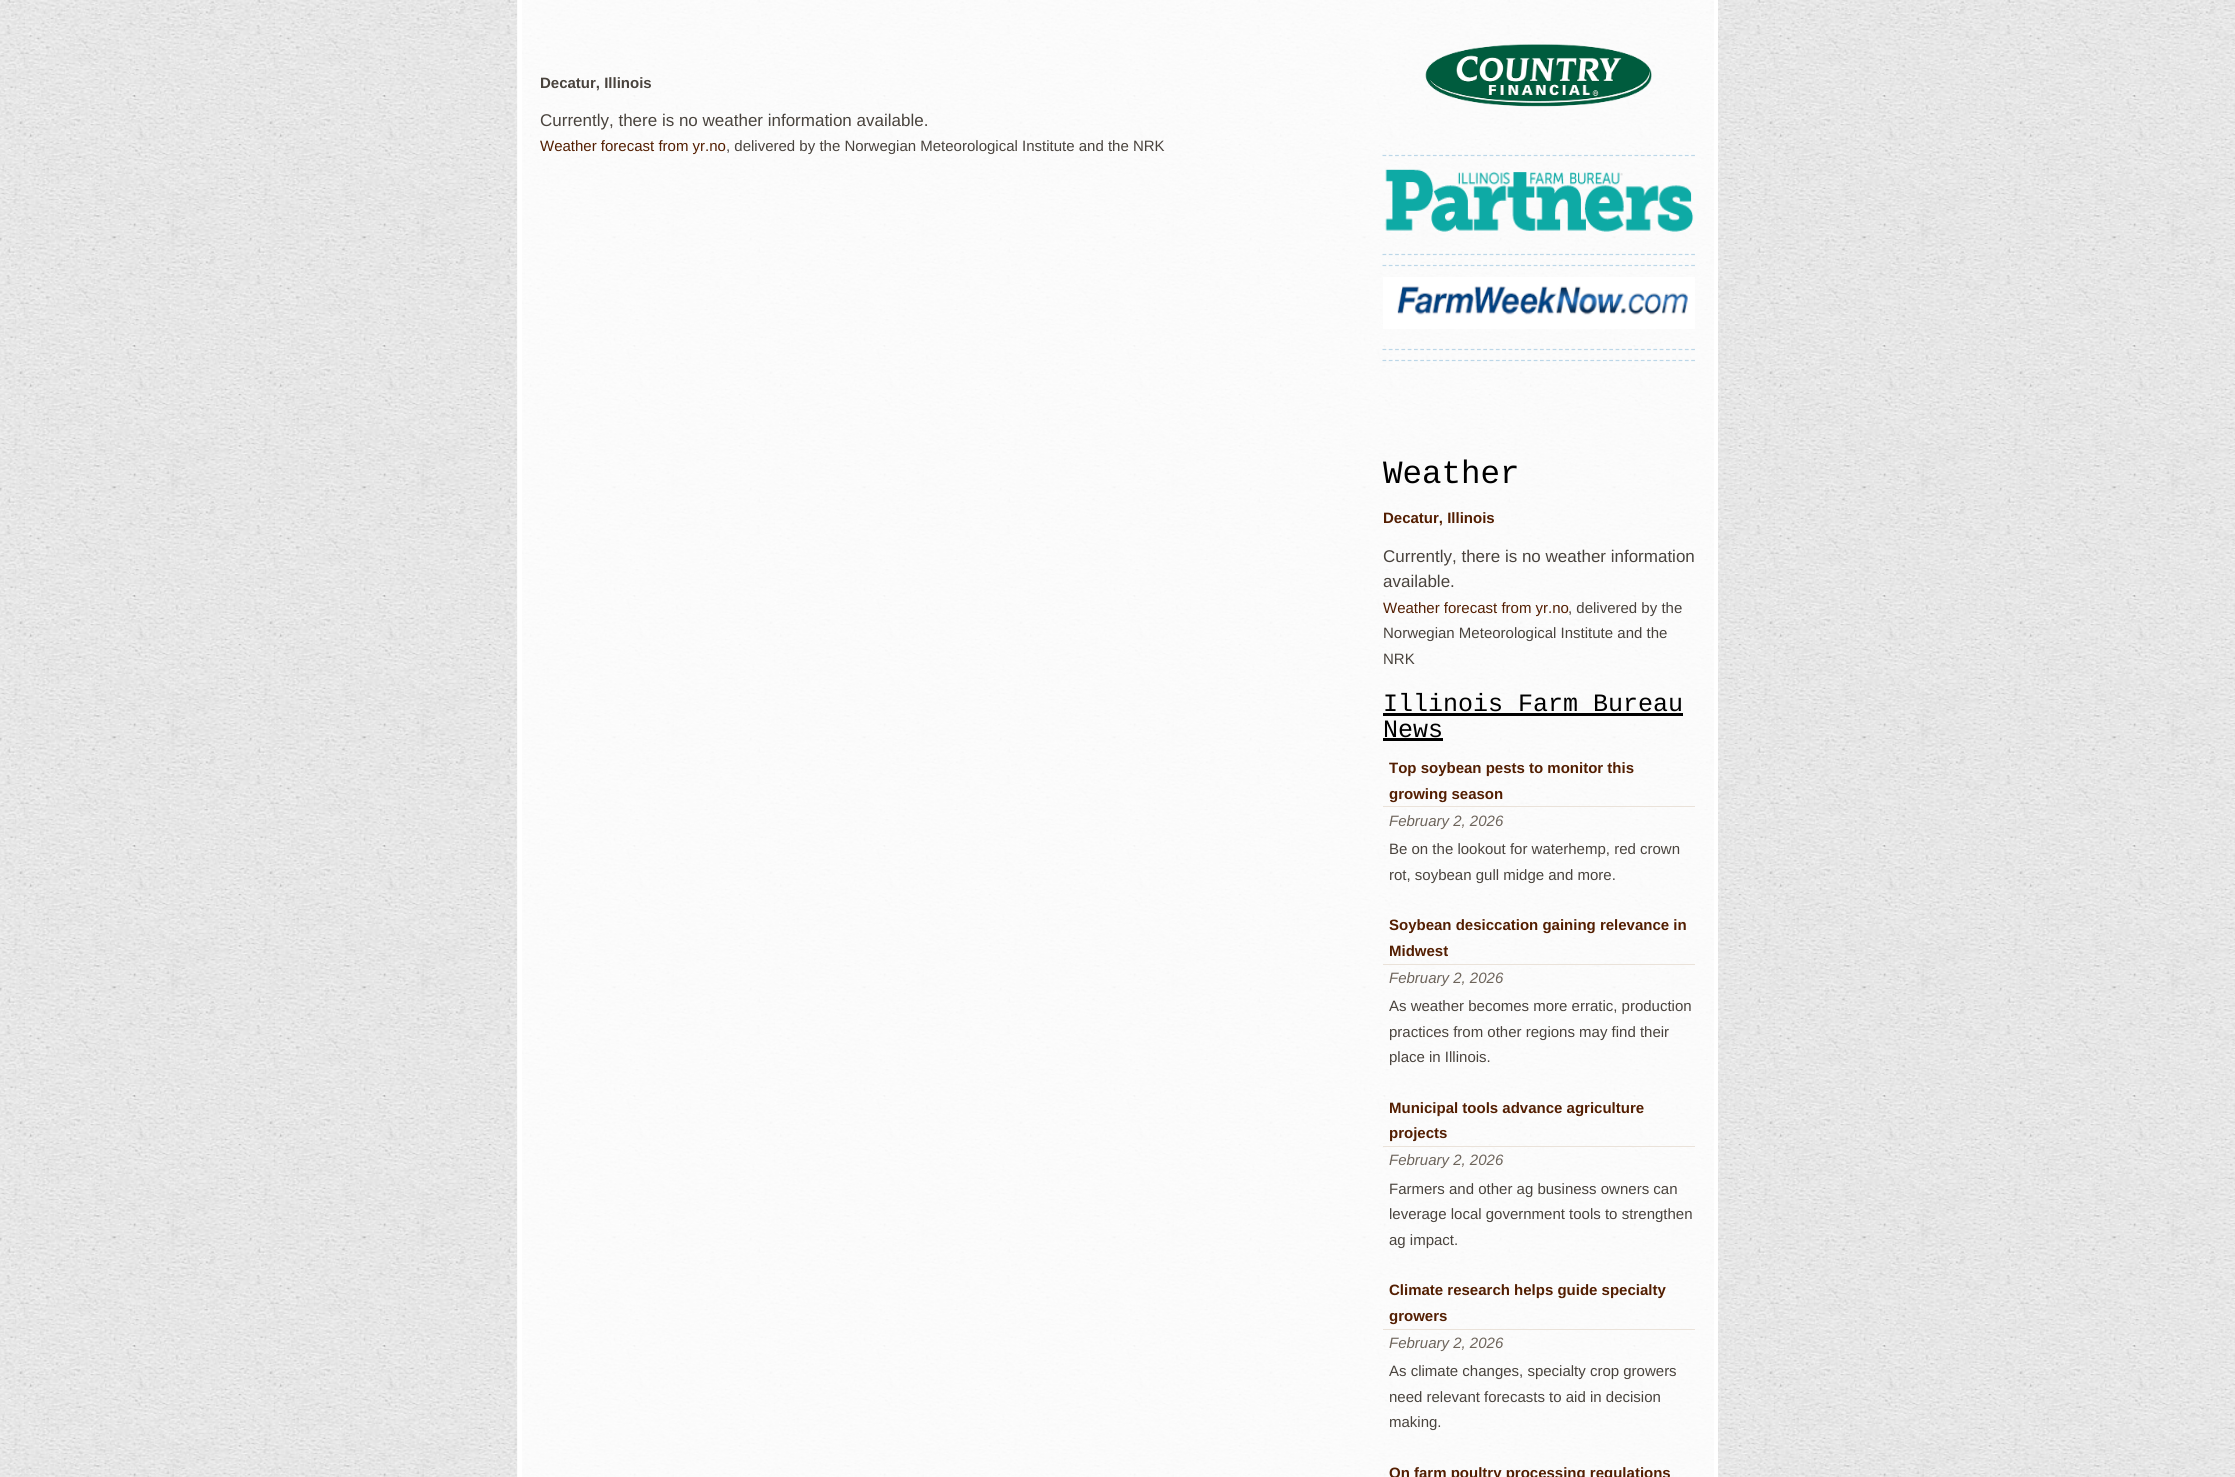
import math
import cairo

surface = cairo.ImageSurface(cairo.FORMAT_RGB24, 2235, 1477)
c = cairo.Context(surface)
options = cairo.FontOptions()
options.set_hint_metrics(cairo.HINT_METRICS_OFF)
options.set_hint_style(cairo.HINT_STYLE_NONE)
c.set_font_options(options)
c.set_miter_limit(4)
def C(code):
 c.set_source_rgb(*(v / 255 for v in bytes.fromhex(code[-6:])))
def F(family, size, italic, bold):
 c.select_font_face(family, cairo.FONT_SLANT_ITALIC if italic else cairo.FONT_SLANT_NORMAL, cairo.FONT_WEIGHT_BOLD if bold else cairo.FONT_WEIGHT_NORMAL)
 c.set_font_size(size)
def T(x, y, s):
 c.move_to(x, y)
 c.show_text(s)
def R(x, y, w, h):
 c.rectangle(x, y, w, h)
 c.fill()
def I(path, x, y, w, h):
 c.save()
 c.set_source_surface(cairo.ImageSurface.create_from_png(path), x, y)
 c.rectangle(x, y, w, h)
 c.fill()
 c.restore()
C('ffffff')
c.paint()
I('1.png',0,0,2235,1477)
c.set_source_rgba(1,1,1,0.84)
R(517,0,1197,1477)
C('ffffff')
R(1714,0,4,1477)
R(518,0,4,1477)
F('Liberation Sans',15,0,1)
C('49433d')
T(540,88,'Decatur, Illinois')
F('Liberation Sans',17,0,0)
T(540,126,'Currently, there is no weather information available.')
F('Liberation Sans',15,0,0)
C('531e01')
T(540,151,'Weather forecast from yr.no')
C('49433d')
T(726,151,', delivered by the Norwegian Meteorological Institute and the NRK')
I('2.png',1425,44,227,63)
c.new_path()
c.move_to(1382.5,155.5)
c.line_to(1695,155.5)
C('bcd7e8')
c.set_line_width(1.2)
c.set_dash([3.75,2.55])
c.stroke()
I('3.png',1385,169,309,63)
c.new_path()
c.move_to(1382.5,254.5)
c.line_to(1695,254.5)
c.stroke()
c.new_path()
c.move_to(1382.5,265.5)
c.line_to(1695,265.5)
c.stroke()
I('4.png',1383,277,312,52)
c.new_path()
c.move_to(1382.5,349.5)
c.line_to(1695,349.5)
c.stroke()
c.new_path()
c.move_to(1382.5,360.5)
c.line_to(1695,360.5)
c.stroke()
F('Liberation Mono',32.5,0,0)
C('000000')
T(1383,483,'Weather')
F('Liberation Sans',15,0,1)
C('531e01')
T(1383,523,'Decatur, Illinois')
F('Liberation Sans',17,0,0)
C('49433d')
T(1383,562,'Currently, there is no weather information')
T(1383,587,'available.')
F('Liberation Sans',15,0,0)
C('531e01')
T(1383,613,'Weather forecast from yr.no')
C('49433d')
T(1568,613,', delivered by the')
T(1383,638,'Norwegian Meteorological Institute and the')
T(1383,664,'NRK')
F('Liberation Mono',25,0,0)
C('000000')
T(1383,711,'Illinois Farm Bureau')
R(1383,713,300,3)
T(1383,737,'News')
R(1383,738,60,3)
C('eae2d9')
R(1383,806,312,1)
F('Liberation Sans',15,0,1)
C('531e01')
T(1389,773,'Top soybean pests to monitor this')
T(1389,799,'growing season')
F('Liberation Sans',15,1,0)
C('6d645b')
T(1389,826,'February 2, 2026')
F('Liberation Sans',15,0,0)
C('49433d')
T(1389,854,'Be on the lookout for waterhemp, red crown')
T(1389,880,'rot, soybean gull midge and more.')
C('eae2d9')
R(1383,964,312,1)
F('Liberation Sans',15,0,1)
C('531e01')
T(1389,930,'Soybean desiccation gaining relevance in')
T(1389,956,'Midwest')
F('Liberation Sans',15,1,0)
C('6d645b')
T(1389,983,'February 2, 2026')
F('Liberation Sans',15,0,0)
C('49433d')
T(1389,1011,'As weather becomes more erratic, production')
T(1389,1037,'practices from other regions may find their')
T(1389,1062,'place in Illinois.')
C('eae2d9')
R(1383,1146,312,1)
F('Liberation Sans',15,0,1)
C('531e01')
T(1389,1113,'Municipal tools advance agriculture')
T(1389,1138,'projects')
F('Liberation Sans',15,1,0)
C('6d645b')
T(1389,1165,'February 2, 2026')
F('Liberation Sans',15,0,0)
C('49433d')
T(1389,1194,'Farmers and other ag business owners can')
T(1389,1219,'leverage local government tools to strengthen')
T(1389,1245,'ag impact.')
C('eae2d9')
R(1383,1329,312,1)
F('Liberation Sans',15,0,1)
C('531e01')
T(1389,1295,'Climate research helps guide specialty')
T(1389,1321,'growers')
F('Liberation Sans',15,1,0)
C('6d645b')
T(1389,1348,'February 2, 2026')
F('Liberation Sans',15,0,0)
C('49433d')
T(1389,1376,'As climate changes, specialty crop growers')
T(1389,1402,'need relevant forecasts to aid in decision')
T(1389,1427,'making.')
F('Liberation Sans',15,0,1)
C('531e01')
T(1389,1478,'On farm poultry processing regulations')
surface.write_to_png('o.png')
